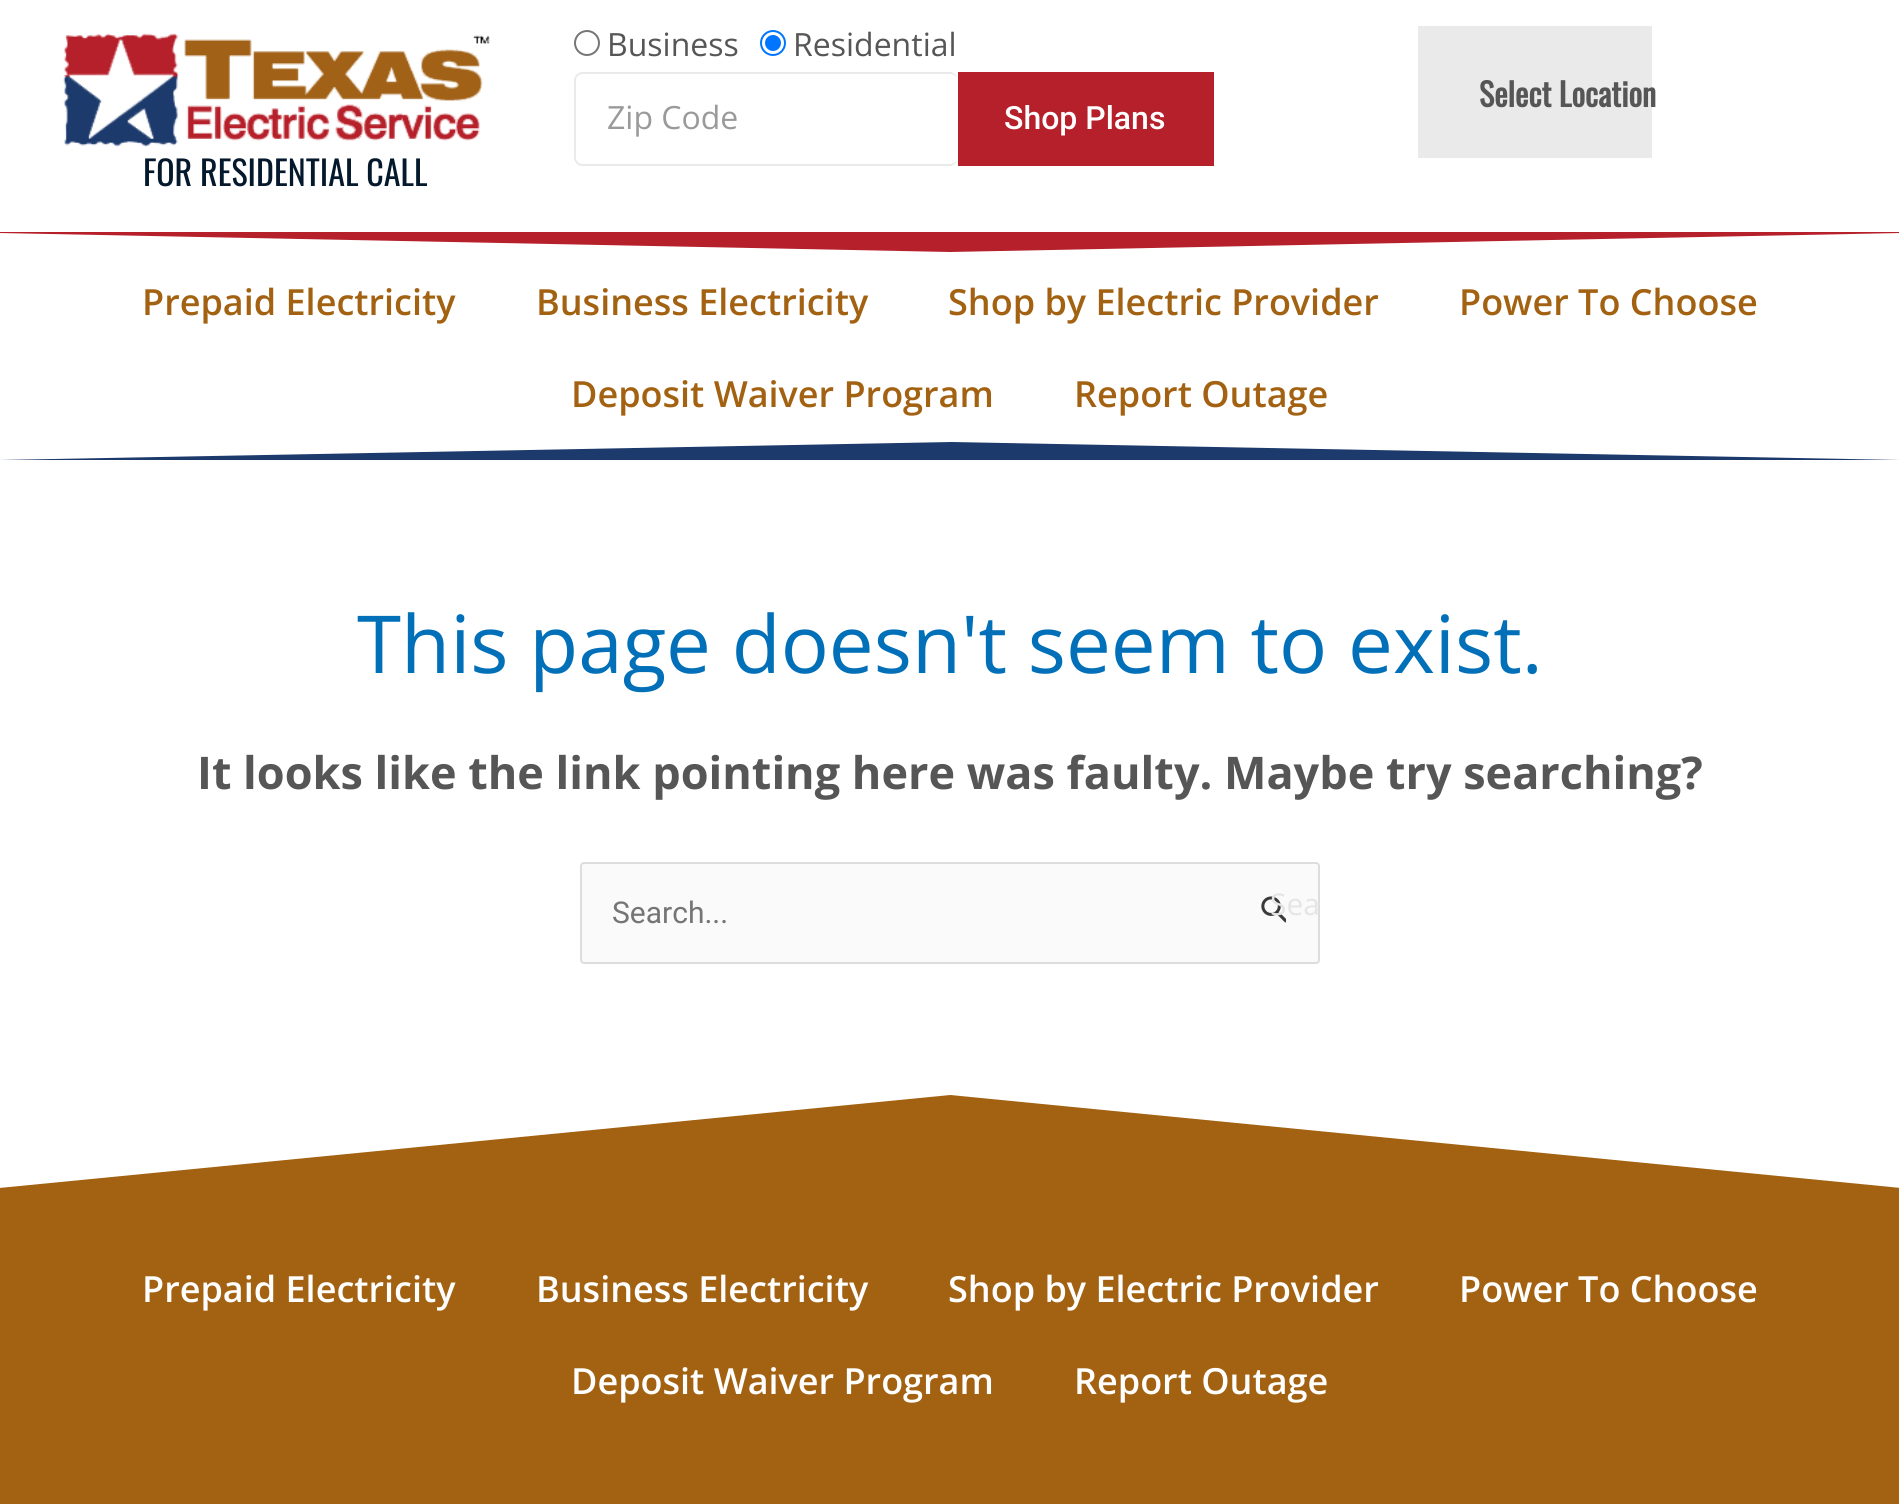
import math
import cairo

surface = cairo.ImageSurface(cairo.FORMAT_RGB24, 1899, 1504)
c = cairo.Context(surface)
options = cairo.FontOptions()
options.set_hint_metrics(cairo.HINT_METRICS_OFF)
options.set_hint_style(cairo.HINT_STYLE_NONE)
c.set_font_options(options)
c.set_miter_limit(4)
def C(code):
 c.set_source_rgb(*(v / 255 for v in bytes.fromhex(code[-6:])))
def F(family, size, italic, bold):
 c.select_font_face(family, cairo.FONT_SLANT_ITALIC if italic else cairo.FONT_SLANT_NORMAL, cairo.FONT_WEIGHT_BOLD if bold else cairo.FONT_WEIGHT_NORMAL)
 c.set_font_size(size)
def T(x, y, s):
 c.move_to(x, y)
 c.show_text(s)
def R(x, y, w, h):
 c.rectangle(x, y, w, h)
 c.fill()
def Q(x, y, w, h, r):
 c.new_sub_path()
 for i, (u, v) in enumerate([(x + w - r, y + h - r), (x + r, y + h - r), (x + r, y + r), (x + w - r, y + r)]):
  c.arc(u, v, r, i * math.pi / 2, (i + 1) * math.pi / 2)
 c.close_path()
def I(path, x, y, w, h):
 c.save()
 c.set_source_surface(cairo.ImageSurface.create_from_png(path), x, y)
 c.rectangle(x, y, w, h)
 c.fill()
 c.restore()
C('ffffff')
c.paint()
I('1.png',63,33,427,114)
c.arc(587,43,12,0,2 * math.pi)
C('767676')
c.stroke()
F('Open Sans',32,0,0)
C('565656')
T(607,56,'Business')
c.new_path()
c.arc(773,43,12,0,2 * math.pi)
C('0075ff')
c.stroke()
c.arc(773,43,8,0,2 * math.pi)
c.fill()
C('565656')
T(793,56,'Residential')
C('eaeaea')
c.set_fill_rule(cairo.FILL_RULE_EVEN_ODD)
c.new_path()
c.move_to(582,72)
c.line_to(950,72)
c.curve_to(954,72,958,76,958,80)
c.line_to(958,158)
c.curve_to(958,162,954,166,950,166)
c.line_to(582,166)
c.curve_to(578,166,574,162,574,158)
c.line_to(574,80)
c.curve_to(574,76,578,72,582,72)
c.close_path()
c.move_to(582,74)
c.line_to(950,74)
c.curve_to(954,74,958,77,958,80)
c.line_to(958,158)
c.curve_to(958,161,954,164,950,164)
c.line_to(582,164)
c.curve_to(579,164,576,161,576,158)
c.line_to(576,80)
c.curve_to(576,77,579,74,582,74)
c.close_path()
c.fill()
C('9a9a9a')
T(607,129,'Zip Code')
C('b6202a')
R(958,72,256,94)
F('Roboto Medium',32,0,0)
C('ffffff')
T(1004,129,'Shop Plans')
C('eaeaea')
R(1418,26,234,132)
F('Oswald',32,0,1)
C('565656')
T(1479,107,'Select Location')
F('Oswald',34,0,0)
C('05192c')
T(143,186,'FOR RESIDENTIAL CALL')
C('b6202a')
c.set_fill_rule(cairo.FILL_RULE_WINDING)
c.new_path()
c.move_to(950,252)
c.line_to(-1,233)
c.line_to(-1,232)
c.line_to(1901,232)
c.line_to(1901,233)
c.close_path()
c.fill()
F('Open Sans SemiBold',36,0,0)
C('a36212')
T(142,315,'Prepaid Electricity')
T(536,315,'Business Electricity')
T(948,315,'Shop by Electric Provider')
T(1459,315,'Power To Choose')
T(571,407,'Deposit Waiver Program')
T(1074,407,'Report Outage')
c.save()
c.rectangle(0,440,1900,20)
c.clip()
C('1d3a6c')
c.new_path()
c.move_to(950,442)
c.line_to(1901,460)
c.line_to(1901,462)
c.line_to(-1,462)
c.line_to(-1,460)
c.close_path()
c.fill()
c.restore()
F('Open Sans',80,0,0)
C('0170b9')
T(357,673,'This page doesn\'t seem to exist.')
F('Open Sans',45,0,1)
C('565656')
T(197,789,'It looks like the link pointing here was faulty. Maybe try searching?')
C('fafafa')
Q(581,863,738,100,3)
c.fill_preserve()
C('dddddd')
c.stroke()
F('Roboto',30,0,0)
C('757575')
T(612,923,'Search...')
I('2.png',1261,896,25,27)
F('Open Sans',30,0,0)
C('e5e5e5')
T(1270,915,'Sea')
C('a36212')
R(0,1095,1899,409)
C('ffffff')
c.new_path()
c.move_to(950,1095)
c.line_to(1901,1188)
c.line_to(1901,1090)
c.line_to(-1,1090)
c.line_to(-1,1188)
c.close_path()
c.fill()
F('Open Sans SemiBold',36,0,0)
T(142,1302,'Prepaid Electricity')
T(536,1302,'Business Electricity')
T(948,1302,'Shop by Electric Provider')
T(1459,1302,'Power To Choose')
T(571,1394,'Deposit Waiver Program')
T(1074,1394,'Report Outage')
surface.write_to_png('o.png')
